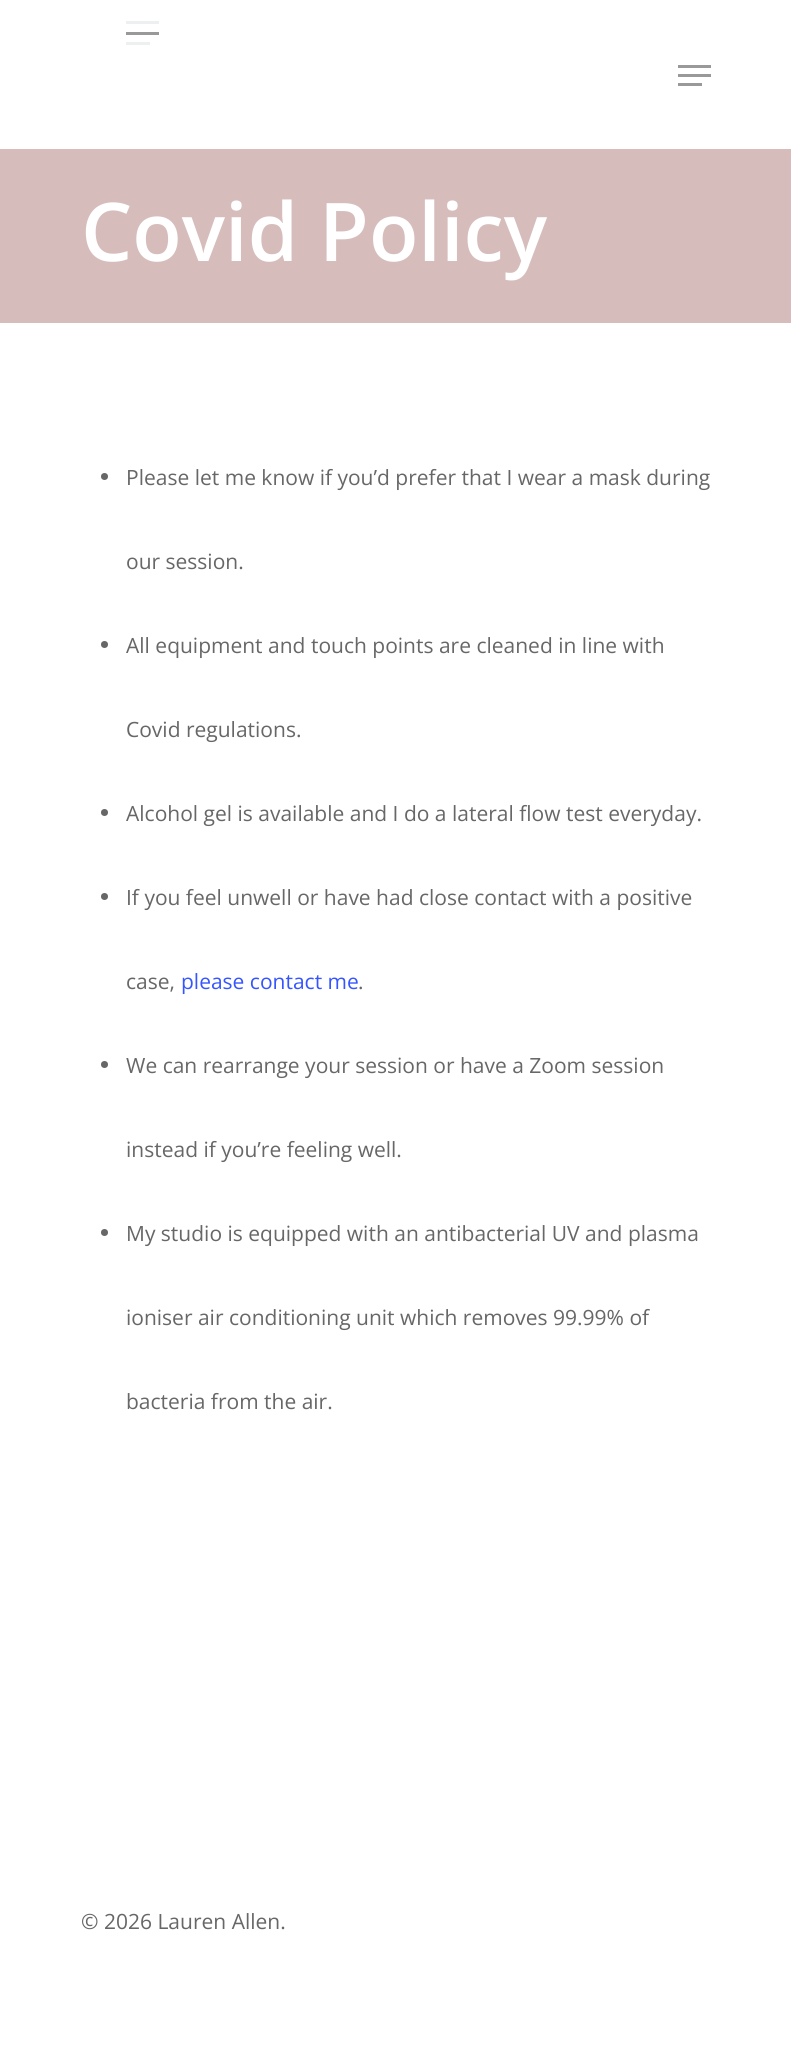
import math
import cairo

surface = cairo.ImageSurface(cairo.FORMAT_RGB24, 791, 2051)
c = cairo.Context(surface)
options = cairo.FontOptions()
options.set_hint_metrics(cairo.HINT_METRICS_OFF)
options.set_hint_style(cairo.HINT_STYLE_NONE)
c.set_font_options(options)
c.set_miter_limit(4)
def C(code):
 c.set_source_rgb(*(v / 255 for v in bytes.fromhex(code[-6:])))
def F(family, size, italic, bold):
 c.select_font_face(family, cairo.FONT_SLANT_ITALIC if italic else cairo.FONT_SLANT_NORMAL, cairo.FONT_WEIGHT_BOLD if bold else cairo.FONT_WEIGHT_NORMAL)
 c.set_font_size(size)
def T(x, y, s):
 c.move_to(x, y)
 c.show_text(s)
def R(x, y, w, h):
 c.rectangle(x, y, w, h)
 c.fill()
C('ffffff')
c.paint()
C('ecf0f1')
R(126,21,33,3)
R(126,42,24,3)
C('999999')
R(126,32,33,3)
R(678,65,33,3)
R(678,83,24,3)
R(678,74,33,3)
C('d6bdbc')
R(0,149,791,174)
F('Open Sans SemiBold',81,0,0)
C('ffffff')
T(81,261,'Covid Policy')
C('676767')
c.new_path()
c.arc(104.5,476.5,3.5,0,2 * math.pi)
c.fill()
F('Open Sans',21,0,0)
T(126,485,'Please let me know if you’d prefer that I wear a mask during')
T(126,569,'our session.')
c.new_path()
c.arc(104.5,644.5,3.5,0,2 * math.pi)
c.fill()
T(126,653,'All equipment and touch points are cleaned in line with')
T(126,737,'Covid regulations.')
c.new_path()
c.arc(104.5,812.5,3.5,0,2 * math.pi)
c.fill()
T(126,821,'Alcohol gel is available and I do a lateral flow test everyday.')
c.new_path()
c.arc(104.5,896.5,3.5,0,2 * math.pi)
c.fill()
T(126,905,'If you feel unwell or have had close contact with a positive')
T(126,989,'case,')
C('3555ff')
T(181,989,'please contact me')
C('676767')
T(358,989,'.')
c.new_path()
c.arc(104.5,1064.5,3.5,0,2 * math.pi)
c.fill()
T(126,1073,'We can rearrange your session or have a Zoom session')
T(126,1157,'instead if you’re feeling well.')
c.new_path()
c.arc(104.5,1232.5,3.5,0,2 * math.pi)
c.fill()
T(126,1241,'My studio is equipped with an antibacterial UV and plasma')
T(126,1325,'ioniser air conditioning unit which removes 99.99% of')
T(126,1409,'bacteria from the air.')
T(81,1929,'© 2026 Lauren Allen.')
surface.write_to_png('o.png')
